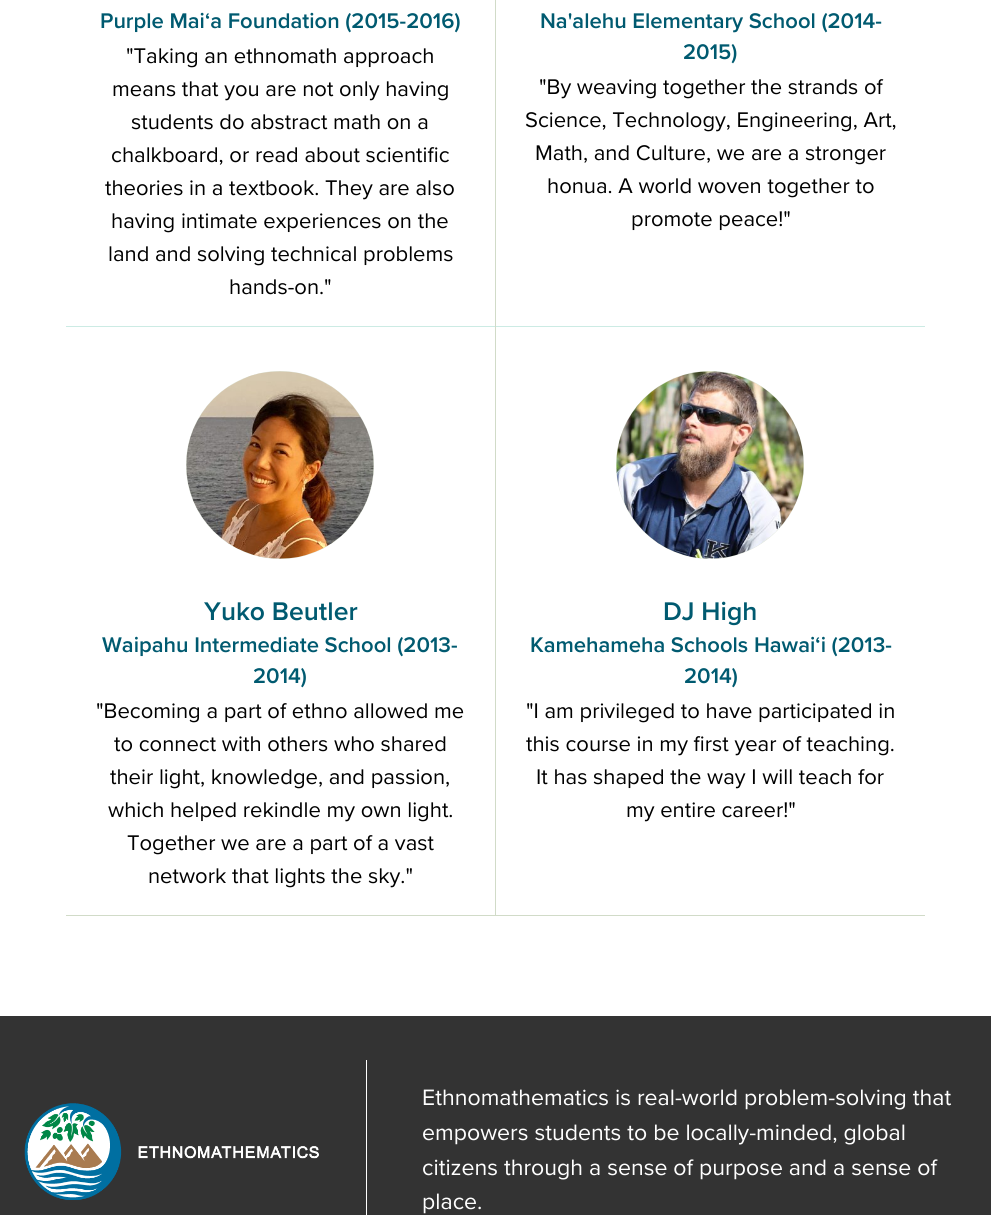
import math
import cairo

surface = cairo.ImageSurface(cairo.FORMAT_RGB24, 991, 1215)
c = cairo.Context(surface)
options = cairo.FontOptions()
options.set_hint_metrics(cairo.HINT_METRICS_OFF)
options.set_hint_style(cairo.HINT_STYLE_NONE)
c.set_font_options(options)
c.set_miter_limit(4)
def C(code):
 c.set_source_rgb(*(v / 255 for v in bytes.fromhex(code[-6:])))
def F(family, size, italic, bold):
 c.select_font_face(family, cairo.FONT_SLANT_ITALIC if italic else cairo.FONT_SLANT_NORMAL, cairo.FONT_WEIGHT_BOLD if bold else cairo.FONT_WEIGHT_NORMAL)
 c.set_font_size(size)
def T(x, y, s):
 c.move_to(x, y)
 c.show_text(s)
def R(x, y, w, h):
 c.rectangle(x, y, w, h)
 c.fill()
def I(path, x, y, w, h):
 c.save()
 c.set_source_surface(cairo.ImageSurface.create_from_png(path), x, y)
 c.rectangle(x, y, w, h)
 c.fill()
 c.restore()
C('ffffff')
c.paint()
C('d1dbc8')
R(495,0,1,326)
F('Proxima Nova SemiBold',22,0,0)
C('005a70')
T(100,28,'Purple Mai‘a Foundation (2015-2016)')
F('Proxima Nova',22,0,0)
C('000000')
T(126,63,'"Taking an ethnomath approach')
T(112,96,'means that you are not only having')
T(131,129,'students do abstract math on a')
T(111,162,'chalkboard, or read about scientific')
T(105,195,'theories in a textbook. They are also')
T(111,228,'having intimate experiences on the')
T(108,261,'land and solving technical problems')
T(229,294,'hands-on."')
F('Proxima Nova SemiBold',22,0,0)
C('005a70')
T(540,28,'Na\'alehu Elementary School (2014-')
T(683,59,'2015)')
F('Proxima Nova',22,0,0)
C('000000')
T(539,94,'"By weaving together the strands of')
T(525,127,'Science, Technology, Engineering, Art,')
T(535,160,'Math, and Culture, we are a stronger')
T(547,193,'honua. A world woven together to')
T(631,226,'promote peace!"')
C('ccebe4')
R(66,326,859,1)
C('d1dbc8')
R(495,326,1,589)
C('e1e7db')
c.new_path()
c.arc(280,465,94,0,2 * math.pi)
c.fill()
I('1.png',186,371,188,188)
F('Proxima Nova SemiBold',26.5,0,0)
C('005a70')
T(204,620,'Yuko Beutler')
F('Proxima Nova SemiBold',22,0,0)
T(102,652,'Waipahu Intermediate School (2013-')
T(253,683,'2014)')
F('Proxima Nova',22,0,0)
C('000000')
T(96,718,'"Becoming a part of ethno allowed me')
T(114,751,'to connect with others who shared')
T(110,784,'their light, knowledge, and passion,')
T(108,817,'which helped rekindle my own light.')
T(127,850,'Together we are a part of a vast')
T(148,883,'network that lights the sky."')
C('e1e7db')
c.new_path()
c.arc(710,465,94,0,2 * math.pi)
c.fill()
I('2.png',616,371,188,188)
F('Proxima Nova SemiBold',26.5,0,0)
C('005a70')
T(663,620,'DJ High')
F('Proxima Nova SemiBold',22,0,0)
T(530,652,'Kamehameha Schools Hawaiʻi (2013-')
T(684,683,'2014)')
F('Proxima Nova',22,0,0)
C('000000')
T(526,718,'"I am privileged to have participated in')
T(526,751,'this course in my first year of teaching.')
T(536,784,'It has shaped the way I will teach for')
T(626,817,'my entire career!"')
C('d1dbc8')
R(66,915,859,1)
C('333333')
R(0,1016,991,199)
I('3.png',24,1103,295,97)
C('ffffff')
R(366,1060,1,155)
F('Proxima Nova',23.1,0,0)
T(422,1105,'Ethnomathematics is real-world problem-solving that')
T(422,1140,'empowers students to be locally-minded, global')
T(422,1175,'citizens through a sense of purpose and a sense of')
T(422,1209,'place.')
surface.write_to_png('o.png')
